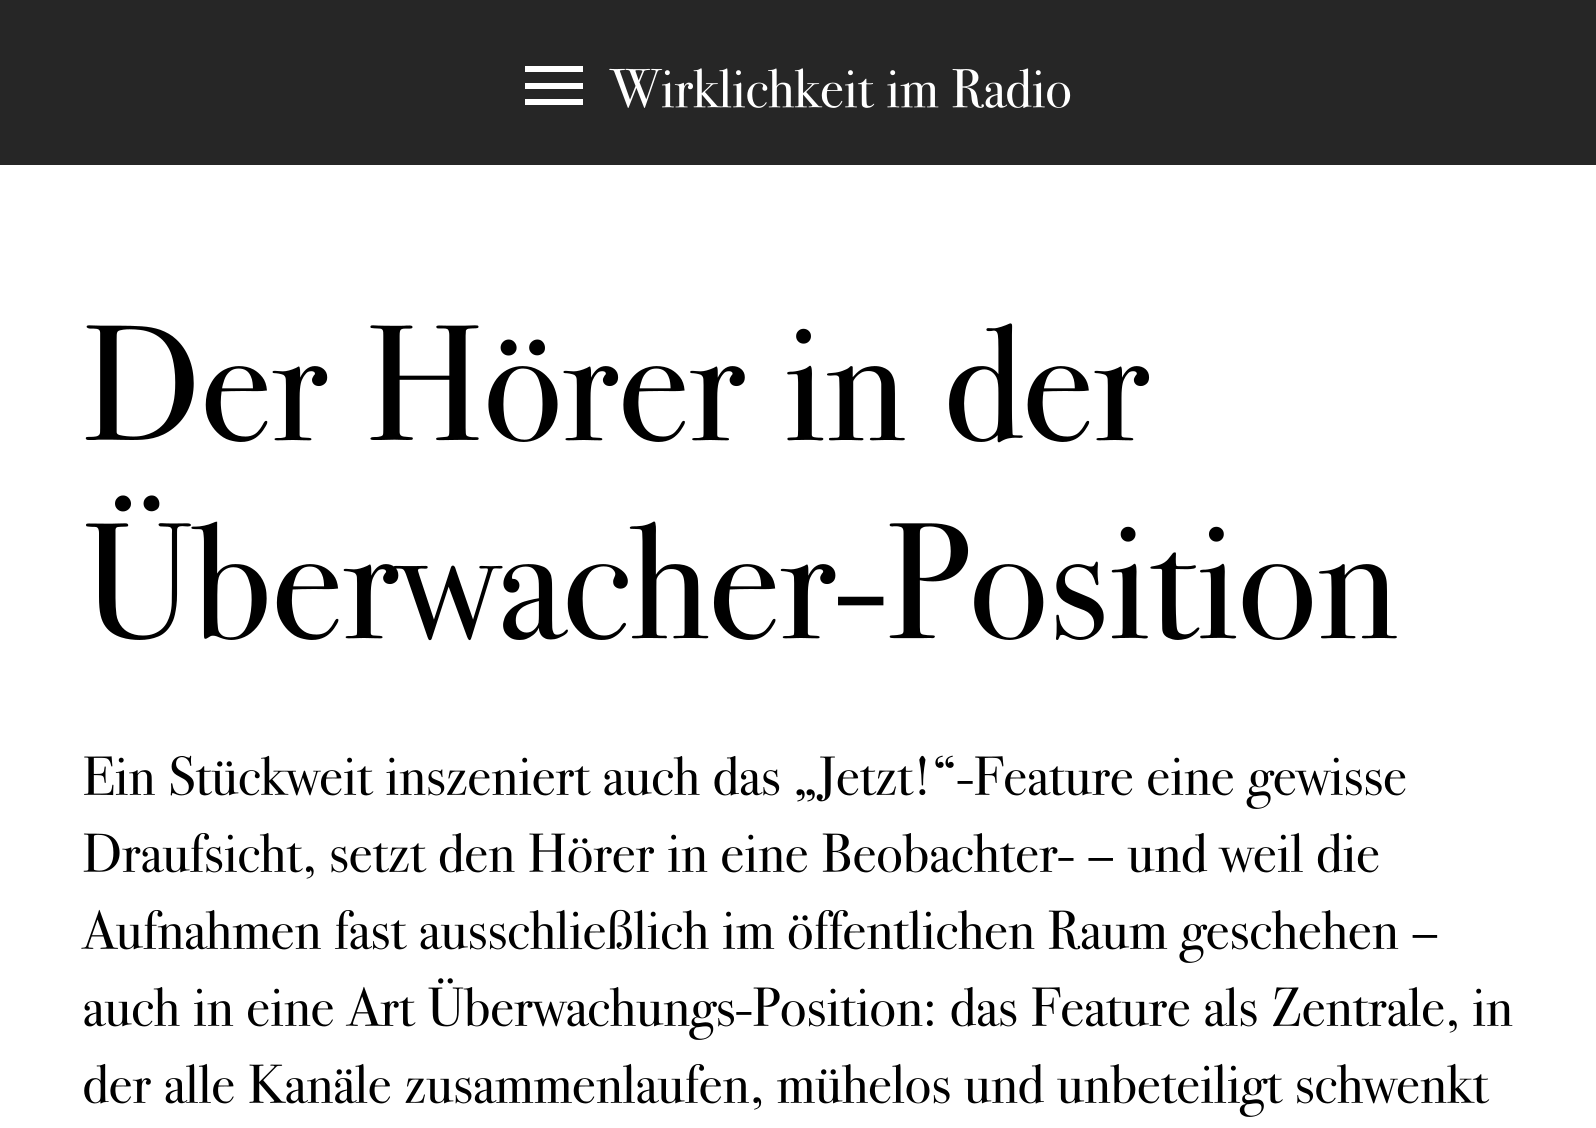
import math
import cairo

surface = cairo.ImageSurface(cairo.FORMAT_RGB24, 1596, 1128)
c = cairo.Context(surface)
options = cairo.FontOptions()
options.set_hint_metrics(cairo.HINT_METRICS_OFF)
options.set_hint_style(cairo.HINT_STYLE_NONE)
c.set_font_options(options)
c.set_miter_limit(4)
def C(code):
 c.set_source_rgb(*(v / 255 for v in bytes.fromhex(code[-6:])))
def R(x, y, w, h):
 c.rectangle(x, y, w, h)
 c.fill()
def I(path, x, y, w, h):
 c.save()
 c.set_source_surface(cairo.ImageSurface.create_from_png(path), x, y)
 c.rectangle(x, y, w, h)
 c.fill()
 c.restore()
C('ffffff')
c.paint()
C('262626')
R(0,0,1596,165)
C('ffffff')
R(525,66,58,6)
R(525,83,58,6)
R(525,99,58,6)
I('1.png',609,68,462,40)
I('2.png',85,323,1065,120)
I('3.png',86,495,1311,146)
I('4.png',84,755,1322,54)
I('5.png',83,832,1296,47)
I('6.png',81,909,1357,54)
I('7.png',84,978,1429,62)
I('8.png',84,1063,1406,54)
surface.write_to_png('o.png')
